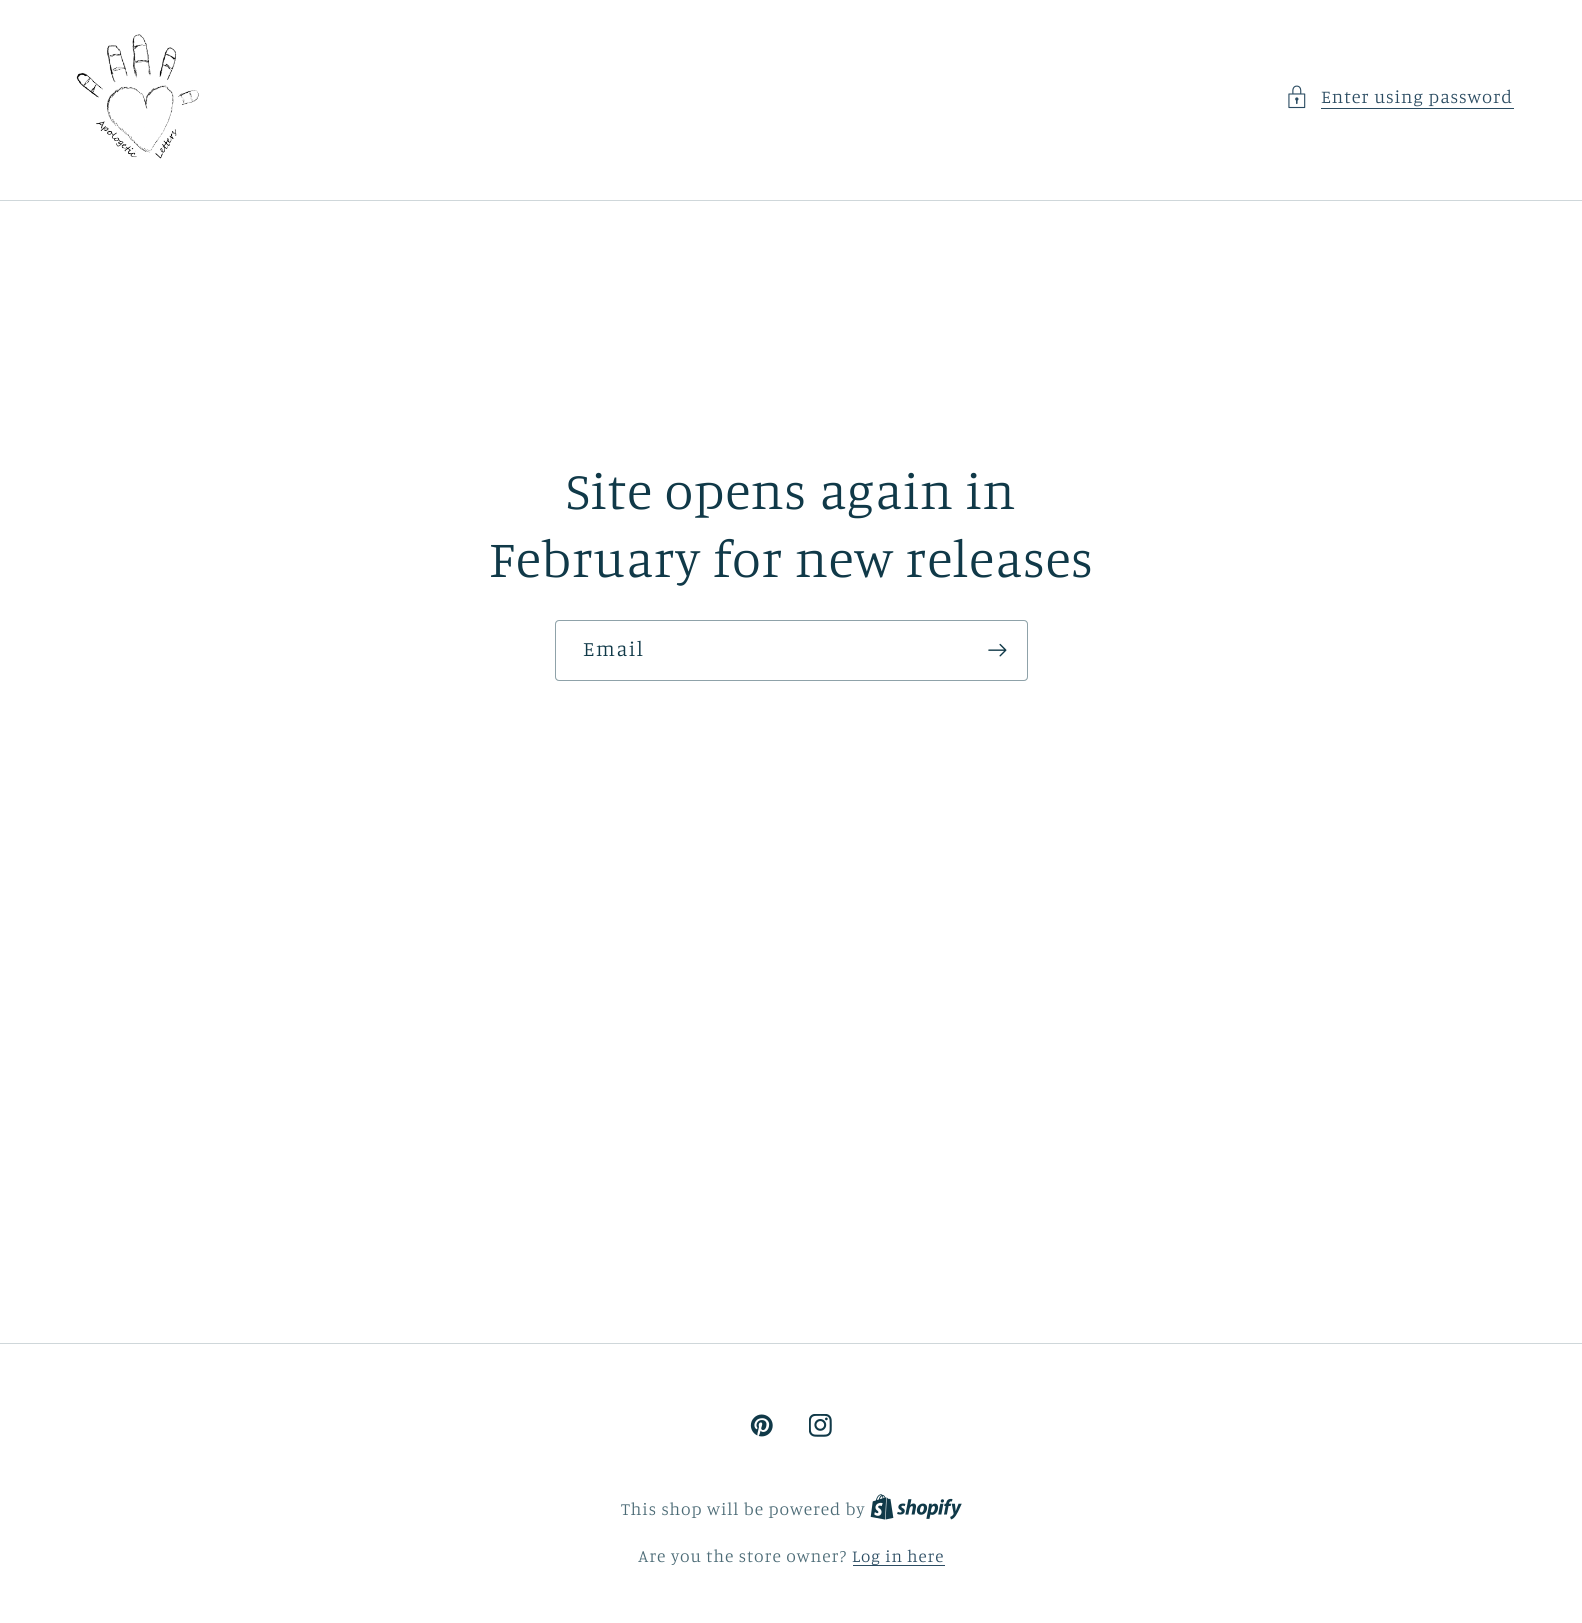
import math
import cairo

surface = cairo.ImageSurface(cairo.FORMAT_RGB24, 1582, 1623)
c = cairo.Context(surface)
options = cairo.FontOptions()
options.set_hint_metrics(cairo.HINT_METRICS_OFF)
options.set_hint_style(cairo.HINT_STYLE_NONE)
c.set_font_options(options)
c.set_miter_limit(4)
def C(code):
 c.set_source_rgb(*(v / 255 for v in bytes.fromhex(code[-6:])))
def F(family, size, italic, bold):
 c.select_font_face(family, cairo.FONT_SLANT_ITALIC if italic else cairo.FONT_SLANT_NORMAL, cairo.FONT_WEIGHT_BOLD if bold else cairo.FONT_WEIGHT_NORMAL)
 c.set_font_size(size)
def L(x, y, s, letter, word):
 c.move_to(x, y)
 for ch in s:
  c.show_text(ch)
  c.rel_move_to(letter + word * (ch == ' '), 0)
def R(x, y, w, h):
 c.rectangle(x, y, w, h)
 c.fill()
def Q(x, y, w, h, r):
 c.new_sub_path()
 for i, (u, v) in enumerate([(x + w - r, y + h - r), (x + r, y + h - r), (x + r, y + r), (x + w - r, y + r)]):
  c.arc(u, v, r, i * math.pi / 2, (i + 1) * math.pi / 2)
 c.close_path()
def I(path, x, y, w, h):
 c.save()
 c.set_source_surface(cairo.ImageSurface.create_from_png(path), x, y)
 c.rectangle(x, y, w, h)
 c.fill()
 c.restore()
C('ffffff')
c.paint()
I('1.png',76,34,123,125)
I('2.png',1288,85,18,24)
F('Manuale Light',18.4,0,0)
C('2b4c62')
L(1321,103,'Enter using password',.9,0)
R(1321,108,193,1)
C('cfd7da')
R(0,200,1582,1)
F('Manuale Light',52.5,0,0)
C('103948')
L(566,509,'Site opens again in',.8,0)
L(489,577,'February for new releases',.8,0)
Q(555.5,620.5,472,60,3.5)
c.set_source_rgba(0.063,0.224,0.282,0.55)
c.set_line_width(1)
c.stroke()
Q(555.5,620.5,472,60,3.5)
c.set_source_rgba(1,1,1,0.15)
c.stroke()
F('Manuale Light',21,0,0)
C('103948')
L(583,656,'Email',1.5,0)
I('3.png',988,643,19,14)
C('cfd7da')
R(0,1343,1582,1)
I('4.png',750,1414,23,23)
I('5.png',809,1414,23,23)
F('Manuale Light',17.5,0,0)
C('4c6b76')
L(621,1515,'This shop will be powered by',.9,0)
I('6.png',870,1494,92,26)
L(638,1562,'Are you the store owner?',.9,0)
F('Manuale Light',17,0,0)
C('2b4c62')
L(852,1562,'Log in here',.9,0)
R(853,1565,92,1)
surface.write_to_png('o.png')
